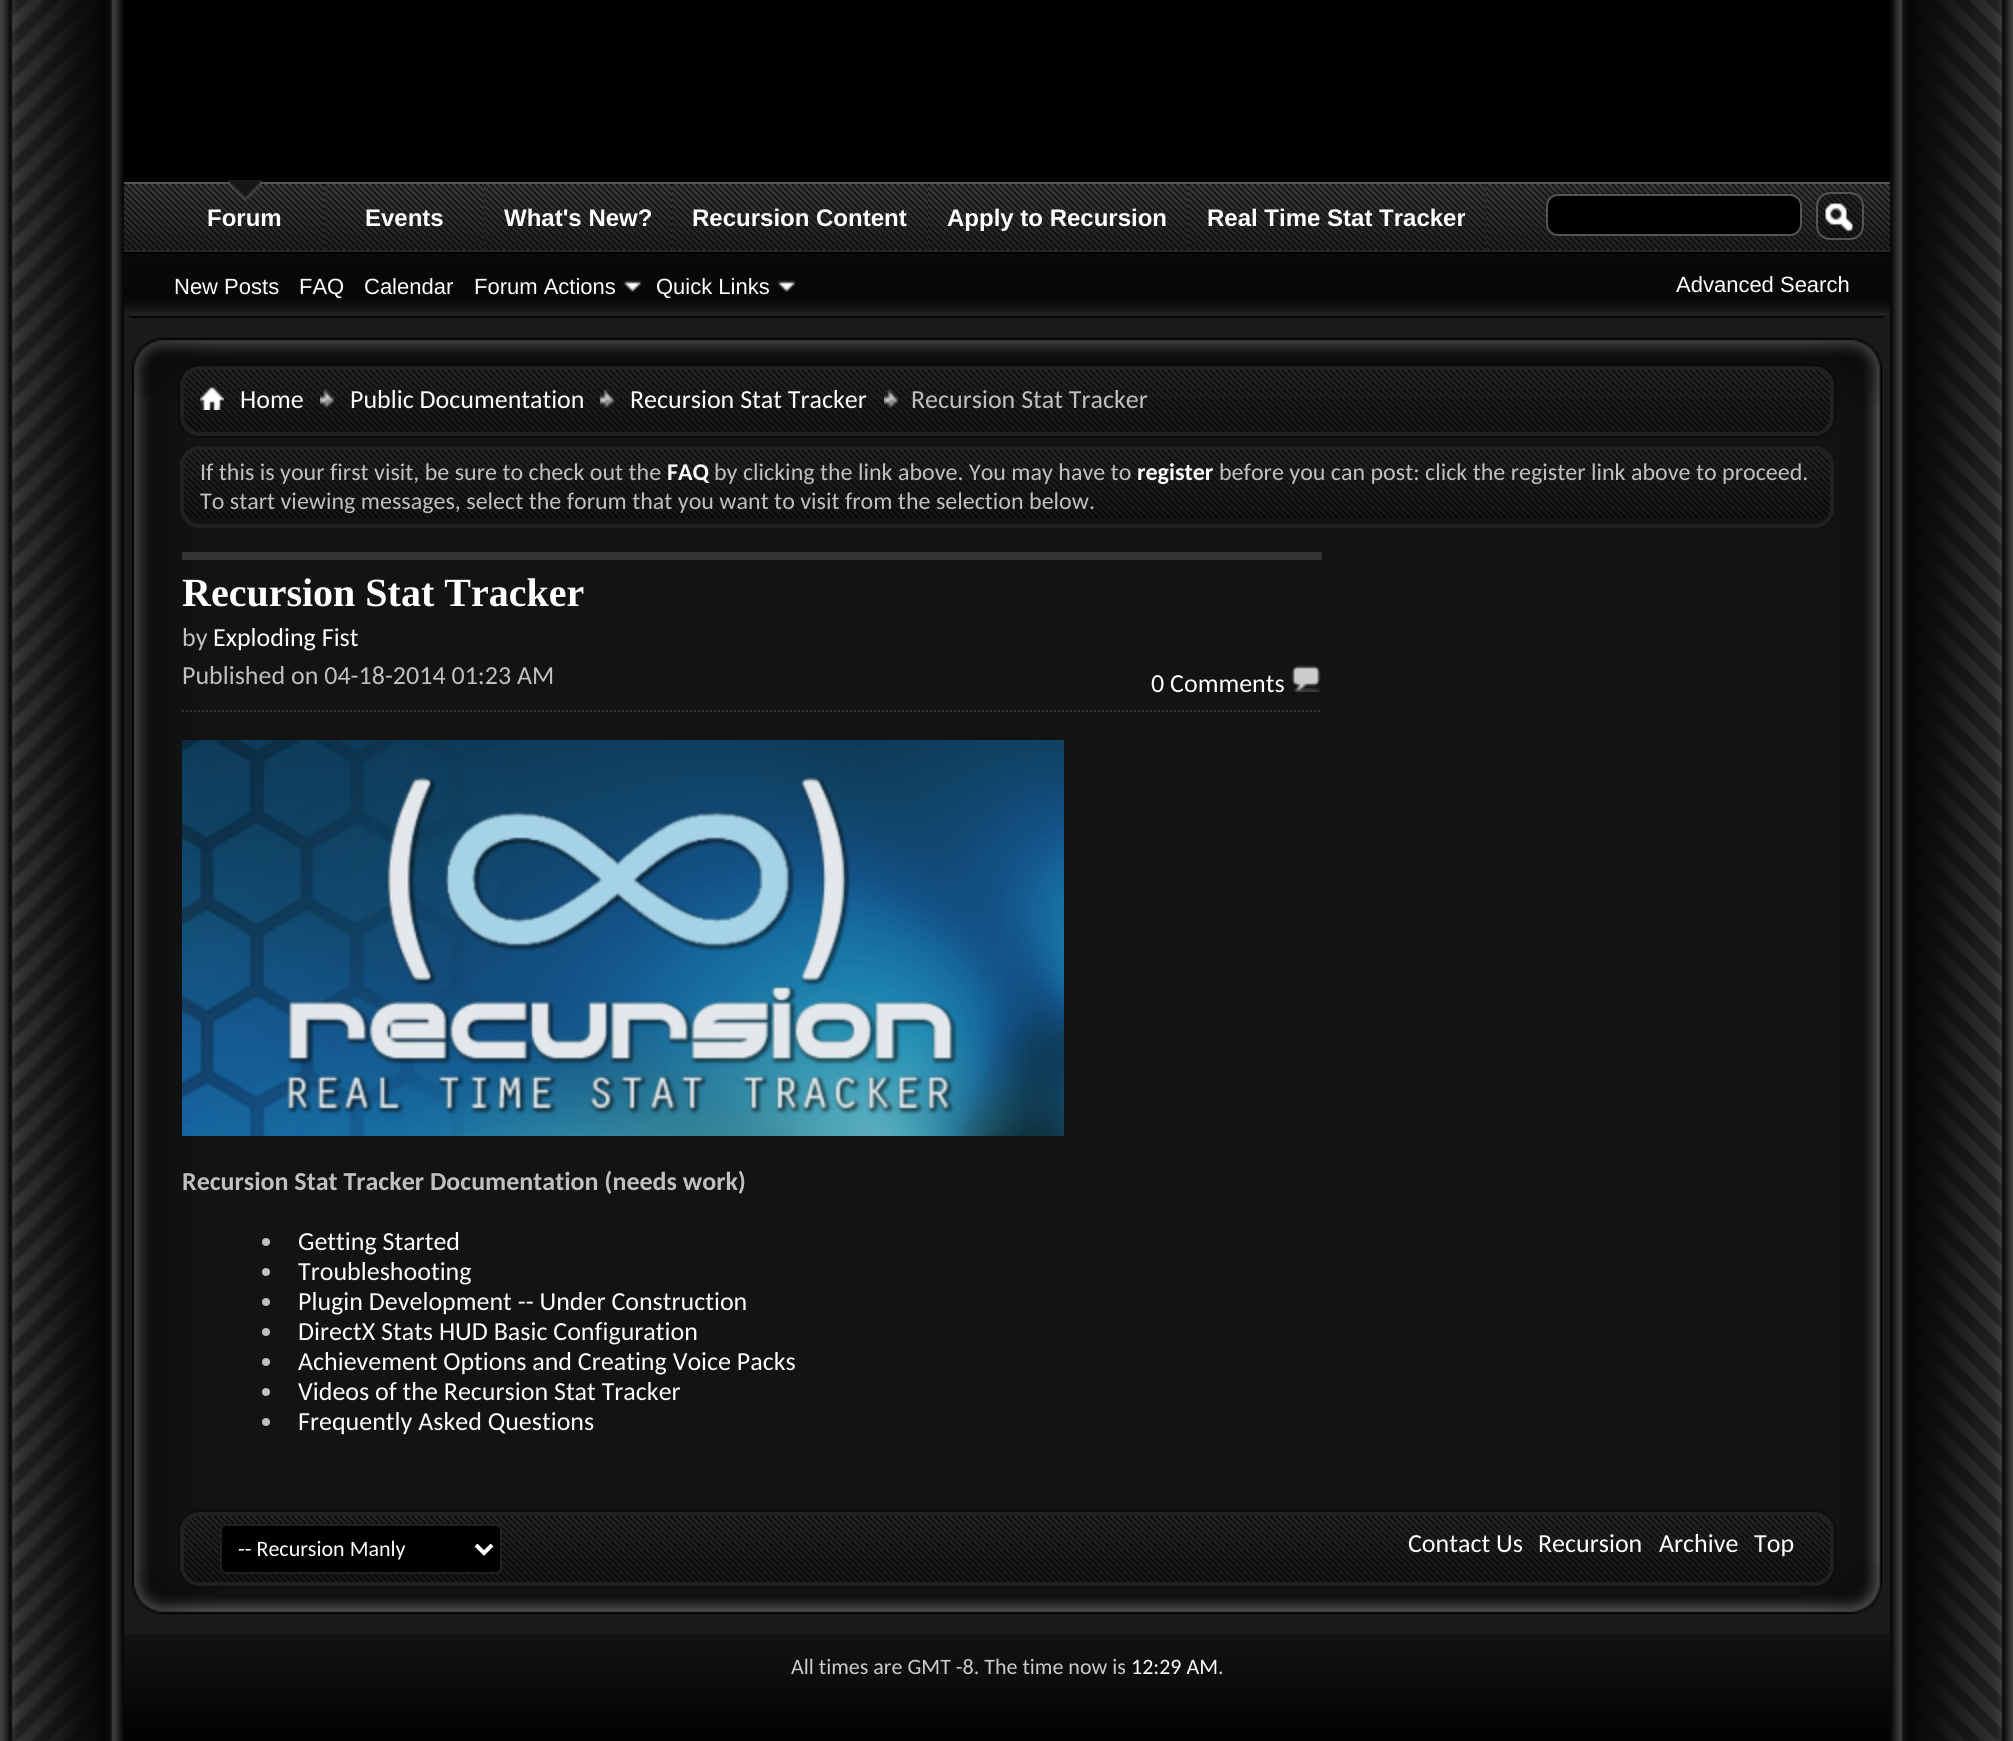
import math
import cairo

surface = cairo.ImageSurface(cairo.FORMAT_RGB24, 2013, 1741)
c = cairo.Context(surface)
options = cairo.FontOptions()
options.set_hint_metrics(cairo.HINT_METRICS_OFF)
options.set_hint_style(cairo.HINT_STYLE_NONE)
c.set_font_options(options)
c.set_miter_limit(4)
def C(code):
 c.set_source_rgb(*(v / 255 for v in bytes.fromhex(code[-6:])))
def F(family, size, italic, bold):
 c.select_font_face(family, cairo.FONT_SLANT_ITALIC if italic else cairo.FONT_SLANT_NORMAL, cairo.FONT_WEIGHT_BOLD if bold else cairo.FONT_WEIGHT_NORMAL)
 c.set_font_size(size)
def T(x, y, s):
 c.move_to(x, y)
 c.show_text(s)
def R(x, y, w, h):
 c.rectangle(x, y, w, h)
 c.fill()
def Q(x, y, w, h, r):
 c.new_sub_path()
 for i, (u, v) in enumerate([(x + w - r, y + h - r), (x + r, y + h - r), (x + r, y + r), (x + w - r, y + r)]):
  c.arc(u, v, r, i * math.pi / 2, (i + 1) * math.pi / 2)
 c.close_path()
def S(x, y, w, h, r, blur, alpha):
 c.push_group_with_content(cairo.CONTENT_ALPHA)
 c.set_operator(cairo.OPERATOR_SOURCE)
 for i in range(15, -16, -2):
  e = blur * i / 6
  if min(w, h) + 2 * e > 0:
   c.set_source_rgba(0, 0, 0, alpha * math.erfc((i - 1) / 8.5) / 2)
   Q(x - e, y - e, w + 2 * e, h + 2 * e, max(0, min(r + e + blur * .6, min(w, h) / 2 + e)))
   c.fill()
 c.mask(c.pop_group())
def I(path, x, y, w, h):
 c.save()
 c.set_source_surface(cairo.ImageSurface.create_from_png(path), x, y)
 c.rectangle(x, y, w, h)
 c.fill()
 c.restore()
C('1a1a1a')
c.paint()
I('1.png',1890,0,123,1741)
I('2.png',0,0,124,1741)
C('000000')
c.new_path()
c.move_to(124,-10)
c.line_to(1890,-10)
c.line_to(1890,308)
c.curve_to(1890,313.5,1885.5,318,1880,318)
c.line_to(134,318)
c.curve_to(128.5,318,124,313.5,124,308)
c.close_path()
c.fill()
C('131313')
c.new_path()
c.move_to(124,182)
c.line_to(1890,182)
c.line_to(1890,308)
c.curve_to(1890,313.5,1885.5,318,1880,318)
c.line_to(134,318)
c.curve_to(128.5,318,124,313.5,124,308)
c.close_path()
c.fill()
I('3.png',124,254,1766,64)
I('4.png',124,184,1766,66)
C('555555')
R(124,182,1766,2)
C('000000')
R(124,252,1766,2)
I('5.png',228,180,34,22)
F('Liberation Sans',24,0,1)
C('ffffff')
T(207,226,'Forum')
I('6.png',324,184,160,66)
T(365,226,'Events')
I('7.png',484,184,188,66)
T(504,226,'What\'s New?')
I('8.png',672,184,256,66)
T(692,226,'Recursion Content')
I('9.png',928,184,260,66)
T(947,226,'Apply to Recursion')
I('10.png',1188,184,298,66)
T(1207,226,'Real Time Stat Tracker')
C('262626')
R(124,250,1766,2)
F('Liberation Sans',22,0,0)
C('ffffff')
T(174,294,'New Posts')
T(299,294,'FAQ')
T(364,294,'Calendar')
T(474,294,'Forum Actions')
I('11.png',623,280,19,12)
T(656,294,'Quick Links')
I('11.png',777,280,19,12)
C('1a1a1a')
S(1546,194,256,42,12,2,1)
C('000000')
Q(1547,195,254,40,11)
c.fill_preserve()
C('555555')
c.stroke()
c.save()
c.rectangle(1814,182,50,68)
c.clip()
C('1a1a1a')
S(1816,192,48,48,14,2,1)
c.restore()
I('12.png',1816,194,48,46)
Q(1817,193,46,46,13)
c.stroke()
I('13.png',1825,203,28,29)
C('ffffff')
T(1676,292,'Advanced Search')
C('131313')
R(218,436,1584,1163)
I('14.png',232,338,1568,28)
I('15.png',218,1599,1584,15)
I('16.png',132,397,86,1174)
I('17.png',1802,406,80,1156)
I('18.png',1800,338,82,68)
I('19.png',132,338,100,59)
I('20.png',1802,1562,80,52)
I('21.png',132,1571,86,43)
C('000000')
S(180,366,1654,70,20,2,1)
I('22.png',180,370,1654,66)
Q(182,368,1650,66,18)
C('202020')
c.set_line_width(4)
c.stroke()
I('23.png',200,386,24,24)
I('24.png',320,389,14,21)
F('Carlito',26,0,0)
C('ffffff')
T(240,408,'Home')
I('25.png',600,389,14,21)
T(350,408,'Public Documentation')
I('24.png',884,389,14,21)
T(630,408,'Recursion Stat Tracker')
C('c0c0c0')
T(911,408,'Recursion Stat Tracker')
I('26.png',180,450,1654,68)
Q(182,448,1650,78,18)
C('202020')
c.stroke()
F('Carlito',24,0,0)
C('c0c0c0')
T(200,480,'If this is your first visit, be sure to check out the')
F('Carlito',24,0,1)
C('ffffff')
T(667,480,'FAQ')
F('Carlito',24,0,0)
C('c0c0c0')
T(714,480,'by clicking the link above. You may have to')
F('Carlito',24,0,1)
C('ffffff')
T(1137,480,'register')
F('Carlito',24,0,0)
C('c0c0c0')
T(1219,480,'before you can post: click the register link above to proceed.')
T(200,509,'To start viewing messages, select the forum that you want to visit from the selection below.')
C('333333')
R(182,552,1140,8)
F('Liberation Serif',40,0,1)
C('ffffff')
T(182,606,'Recursion Stat Tracker')
c.new_path()
c.move_to(182,711)
c.line_to(1322,711)
C('333333')
c.set_line_width(2)
c.set_dash([2,2])
c.stroke()
F('Carlito',26,0,0)
C('c0c0c0')
T(182,646,'by')
C('ffffff')
T(213,646,'Exploding Fist')
C('c0c0c0')
T(182,684,'Published on 04-18-2014 01:23 AM')
C('ffffff')
T(1151,692,'0 Comments')
I('27.png',1291,665,31,27)
I('28.png',182,740,882,396)
F('Carlito',26,0,1)
C('c0c0c0')
T(182,1190,'Recursion Stat Tracker Documentation (needs work)')
c.new_path()
c.arc(266,1242,4,0,2 * math.pi)
c.fill()
F('Carlito',26,0,0)
C('ffffff')
T(298,1250,'Getting Started')
C('c0c0c0')
c.new_path()
c.arc(266,1272,4,0,2 * math.pi)
c.fill()
C('ffffff')
T(298,1280,'Troubleshooting')
C('c0c0c0')
c.new_path()
c.arc(266,1302,4,0,2 * math.pi)
c.fill()
C('ffffff')
T(298,1310,'Plugin Development -- Under Construction')
C('c0c0c0')
c.new_path()
c.arc(266,1332,4,0,2 * math.pi)
c.fill()
C('ffffff')
T(298,1340,'DirectX Stats HUD Basic Configuration')
C('c0c0c0')
c.new_path()
c.arc(266,1362,4,0,2 * math.pi)
c.fill()
C('ffffff')
T(298,1370,'Achievement Options and Creating Voice Packs')
C('c0c0c0')
c.new_path()
c.arc(266,1392,4,0,2 * math.pi)
c.fill()
C('ffffff')
T(298,1400,'Videos of the Recursion Stat Tracker')
C('c0c0c0')
c.new_path()
c.arc(266,1422,4,0,2 * math.pi)
c.fill()
C('ffffff')
T(298,1430,'Frequently Asked Questions')
C('000000')
S(180,1512,1654,74,20,2,1)
I('29.png',180,1516,1654,68)
Q(182,1514,1650,70,18)
C('202020')
c.set_line_width(4)
c.set_dash([])
c.stroke()
C('000000')
Q(221,1525,280,48,5)
c.fill_preserve()
C('202020')
c.set_line_width(2)
c.stroke()
c.new_path()
c.move_to(476,1545)
c.line_to(484,1553)
c.line_to(492,1545)
C('ffffff')
c.set_line_width(4)
c.stroke()
F('Carlito',22,0,0)
T(238,1556,'-- Recursion Manly')
F('Carlito',26,0,0)
T(1408,1552,'Contact Us')
T(1538,1552,'Recursion')
T(1659,1552,'Archive')
T(1754,1552,'Top')
I('30.png',124,1634,1766,107)
F('Carlito',22,0,0)
C('cccccc')
T(791,1674,'All times are GMT -8. The time now is')
C('ffffff')
T(1131,1674,'12:29 AM')
C('cccccc')
T(1218,1674,'.')
surface.write_to_png('o.png')
